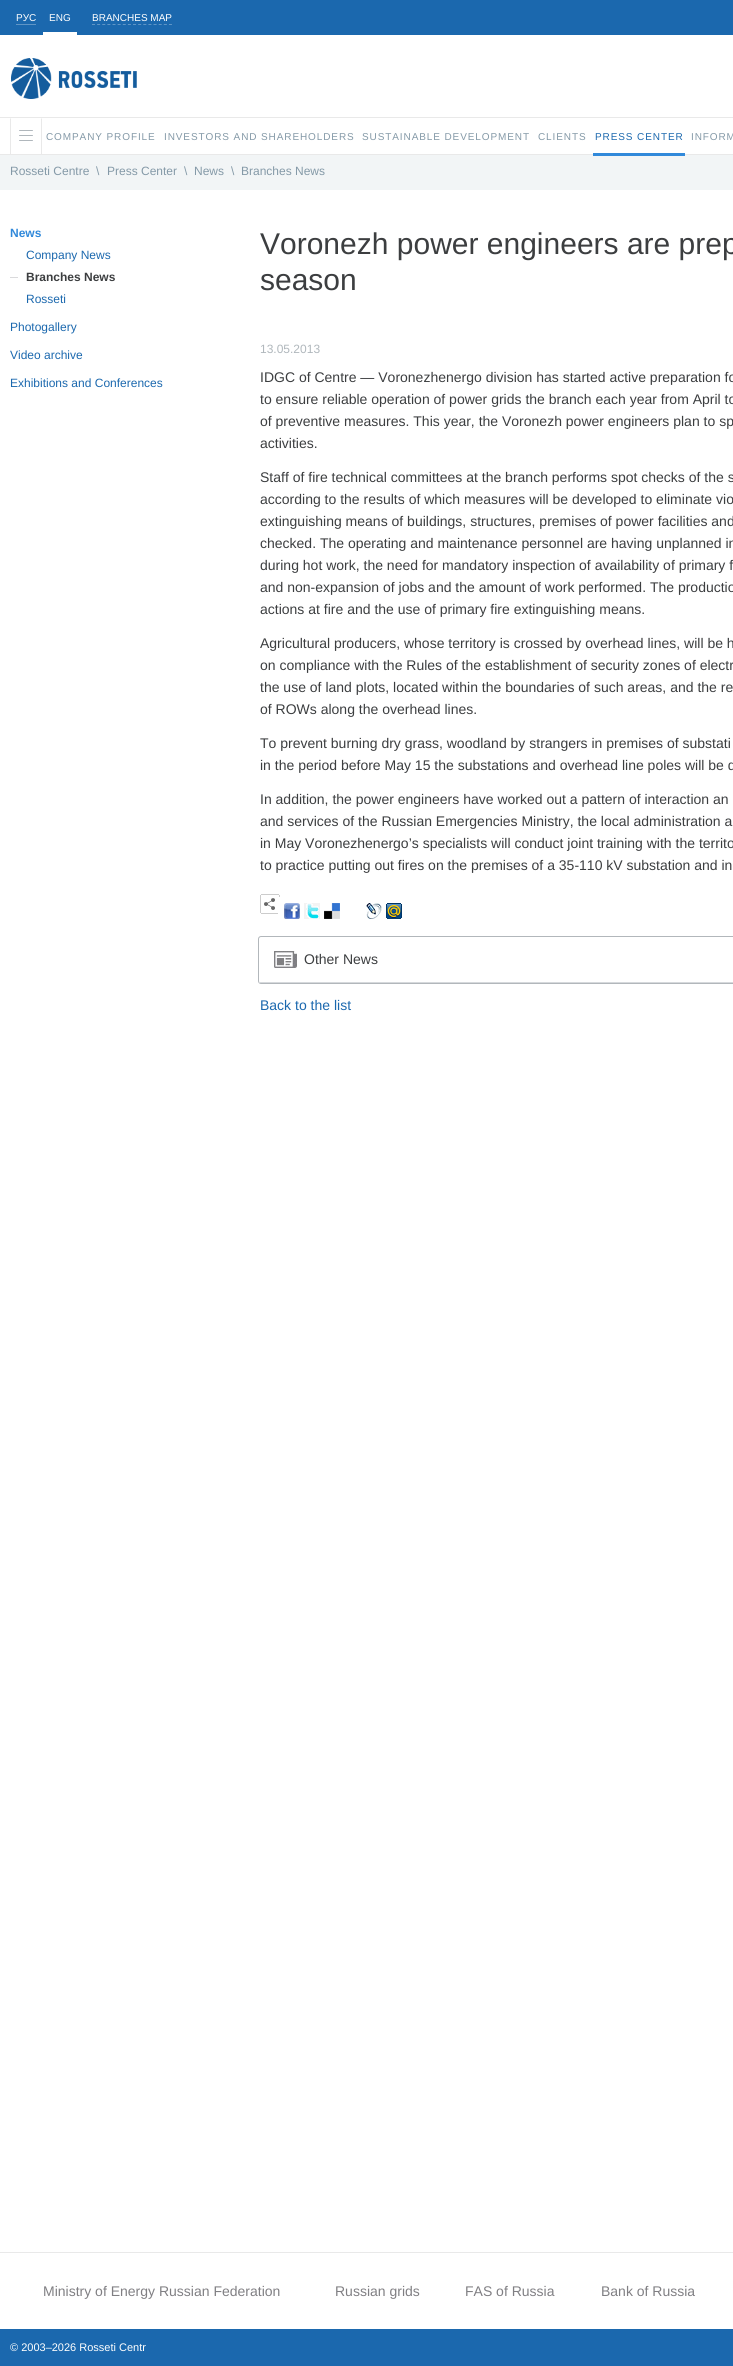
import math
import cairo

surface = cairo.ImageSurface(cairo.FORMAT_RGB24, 733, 2366)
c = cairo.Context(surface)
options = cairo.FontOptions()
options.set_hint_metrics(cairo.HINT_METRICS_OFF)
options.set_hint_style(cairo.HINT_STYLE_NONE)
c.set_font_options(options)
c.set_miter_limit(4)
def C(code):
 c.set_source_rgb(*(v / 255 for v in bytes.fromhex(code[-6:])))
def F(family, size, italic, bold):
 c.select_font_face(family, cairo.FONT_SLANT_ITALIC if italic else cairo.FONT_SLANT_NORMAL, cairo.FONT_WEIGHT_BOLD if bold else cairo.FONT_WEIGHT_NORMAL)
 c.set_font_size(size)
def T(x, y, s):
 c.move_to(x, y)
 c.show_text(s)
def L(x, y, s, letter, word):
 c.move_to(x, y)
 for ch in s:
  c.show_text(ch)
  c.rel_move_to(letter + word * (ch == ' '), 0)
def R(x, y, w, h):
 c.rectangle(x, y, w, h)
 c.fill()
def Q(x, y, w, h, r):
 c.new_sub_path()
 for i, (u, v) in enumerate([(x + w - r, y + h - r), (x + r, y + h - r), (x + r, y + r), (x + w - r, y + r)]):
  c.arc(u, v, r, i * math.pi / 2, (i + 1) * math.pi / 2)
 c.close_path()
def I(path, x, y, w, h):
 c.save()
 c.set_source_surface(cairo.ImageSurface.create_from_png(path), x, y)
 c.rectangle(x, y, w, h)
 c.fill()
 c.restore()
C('ffffff')
c.paint()
C('1b68ae')
R(0,0,733,35)
C('5f95c6')
R(16,24,20,1)
F('Liberation Sans',10,0,0)
C('ffffff')
T(16,21,'РУС')
R(43,32,34,3)
T(49,21,'ENG')
c.new_path()
c.move_to(92,24.5)
c.line_to(172,24.5)
C('5f95c6')
c.set_line_width(1)
c.set_dash([3,2.13])
c.stroke()
C('ffffff')
T(92,21,'BRANCHES MAP')
C('e9e9e9')
R(0,117,733,1)
I('1.png',11,58,126,41)
R(0,154,733,1)
c.new_path()
c.move_to(42,118)
c.line_to(42,154)
c.line_to(41,154)
c.line_to(41,119)
c.close_path()
c.move_to(10,154)
c.line_to(10,118)
c.line_to(11,119)
c.line_to(11,154)
c.close_path()
c.fill()
C('b0b7bc')
Q(19,135,14,1,.5)
c.fill()
Q(19,130,14,1,.5)
c.fill()
Q(19,140,14,1,.5)
c.fill()
C('8499a7')
L(46,140,'COMPANY PROFILE',.9,0)
L(164,140,'INVESTORS AND SHAREHOLDERS',.9,0)
L(362,140,'SUSTAINABLE DEVELOPMENT',.9,0)
L(538,140,'CLIENTS',.9,0)
C('1b68ae')
L(595,140,'PRESS CENTER',.9,0)
C('f2f5f6')
R(0,155,733,35)
C('3189da')
R(593,153,92,3)
C('8499a7')
L(691,140,'INFORM',.9,0)
F('Liberation Sans',12,0,0)
T(10,175,'Rosseti Centre')
T(96,175,'\\')
T(107,175,'Press Center')
T(184,175,'\\')
T(194,175,'News')
T(231,175,'\\')
T(241,175,'Branches News')
F('Liberation Sans',12,0,1)
C('3189da')
T(10,237,'News')
F('Liberation Sans',12,0,0)
C('1b68ae')
T(26,259,'Company News')
C('dadadc')
R(10,277,8,1)
F('Liberation Sans',12,0,1)
C('3c3e40')
T(26,281,'Branches News')
F('Liberation Sans',12,0,0)
C('1b68ae')
T(26,303,'Rosseti')
T(10,331,'Photogallery')
T(10,359,'Video archive')
T(10,387,'Exhibitions and Conferences')
F('Liberation Sans',30,0,0)
C('3c3e40')
T(260,254,'Voronezh power engineers are prep')
T(260,290,'season')
F('Liberation Sans',12,0,0)
C('b0b7bc')
T(260,353,'13.05.2013')
F('Liberation Sans',14,0,0)
C('3c3e40')
T(260,382,'IDGC of Centre — Voronezhenergo division has started active preparation fo')
T(260,404,'to ensure reliable operation of power grids the branch each year from April to')
T(260,426,'of preventive measures. This year, the Voronezh power engineers plan to sp')
T(260,448,'activities.')
T(260,482,'Staff of fire technical committees at the branch performs spot checks of the s')
T(260,504,'according to the results of which measures will be developed to eliminate vio')
T(260,526,'extinguishing means of buildings, structures, premises of power facilities and')
T(260,548,'checked. The operating and maintenance personnel are having unplanned in')
T(260,570,'during hot work, the need for mandatory inspection of availability of primary f')
T(260,592,'and non-expansion of jobs and the amount of work performed. The productio')
T(260,614,'actions at fire and the use of primary fire extinguishing means.')
T(260,648,'Agricultural producers, whose territory is crossed by overhead lines, will be h')
T(260,670,'on compliance with the Rules of the establishment of security zones of electr')
T(260,692,'the use of land plots, located within the boundaries of such areas, and the re')
T(260,714,'of ROWs along the overhead lines.')
T(260,748,'To prevent burning dry grass, woodland by strangers in premises of substati')
T(260,770,'in the period before May 15 the substations and overhead line poles will be d')
T(260,804,'In addition, the power engineers have worked out a pattern of interaction an')
T(260,826,'and services of the Russian Emergencies Ministry, the local administration a')
T(260,848,'in May Voronezhenergo’s specialists will conduct joint training with the territo')
T(260,870,'to practice putting out fires on the premises of a 35-110 kV substation and in')
I('2.png',260,894,20,20)
C('ffffff')
R(278,897,2,17)
I('3.png',284,903,16,16)
I('4.png',304,903,16,16)
I('5.png',324,903,16,16)
I('6.png',366,903,16,16)
I('7.png',386,903,16,16)
Q(258.5,936.5,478,47,2.5)
C('b2b7bb')
c.set_dash([])
c.stroke()
I('8.png',274,951,23,17)
C('d6d9dc')
R(259,982,474,1)
C('3c3e40')
T(304,964,'Other News')
C('1b68ae')
T(260,1010,'Back to the list')
C('e9e9e9')
R(0,2252,733,1)
C('807f83')
T(43,2296,'Ministry of Energy Russian Federation')
T(335,2296,'Russian grids')
T(465,2296,'FAS of Russia')
T(601,2296,'Bank of Russia')
C('1b68ae')
R(0,2329,733,37)
F('Liberation Sans',11,0,0)
C('ffffff')
T(10,2351,'© 2003–2026 Rosseti Centr')
surface.write_to_png('o.png')
